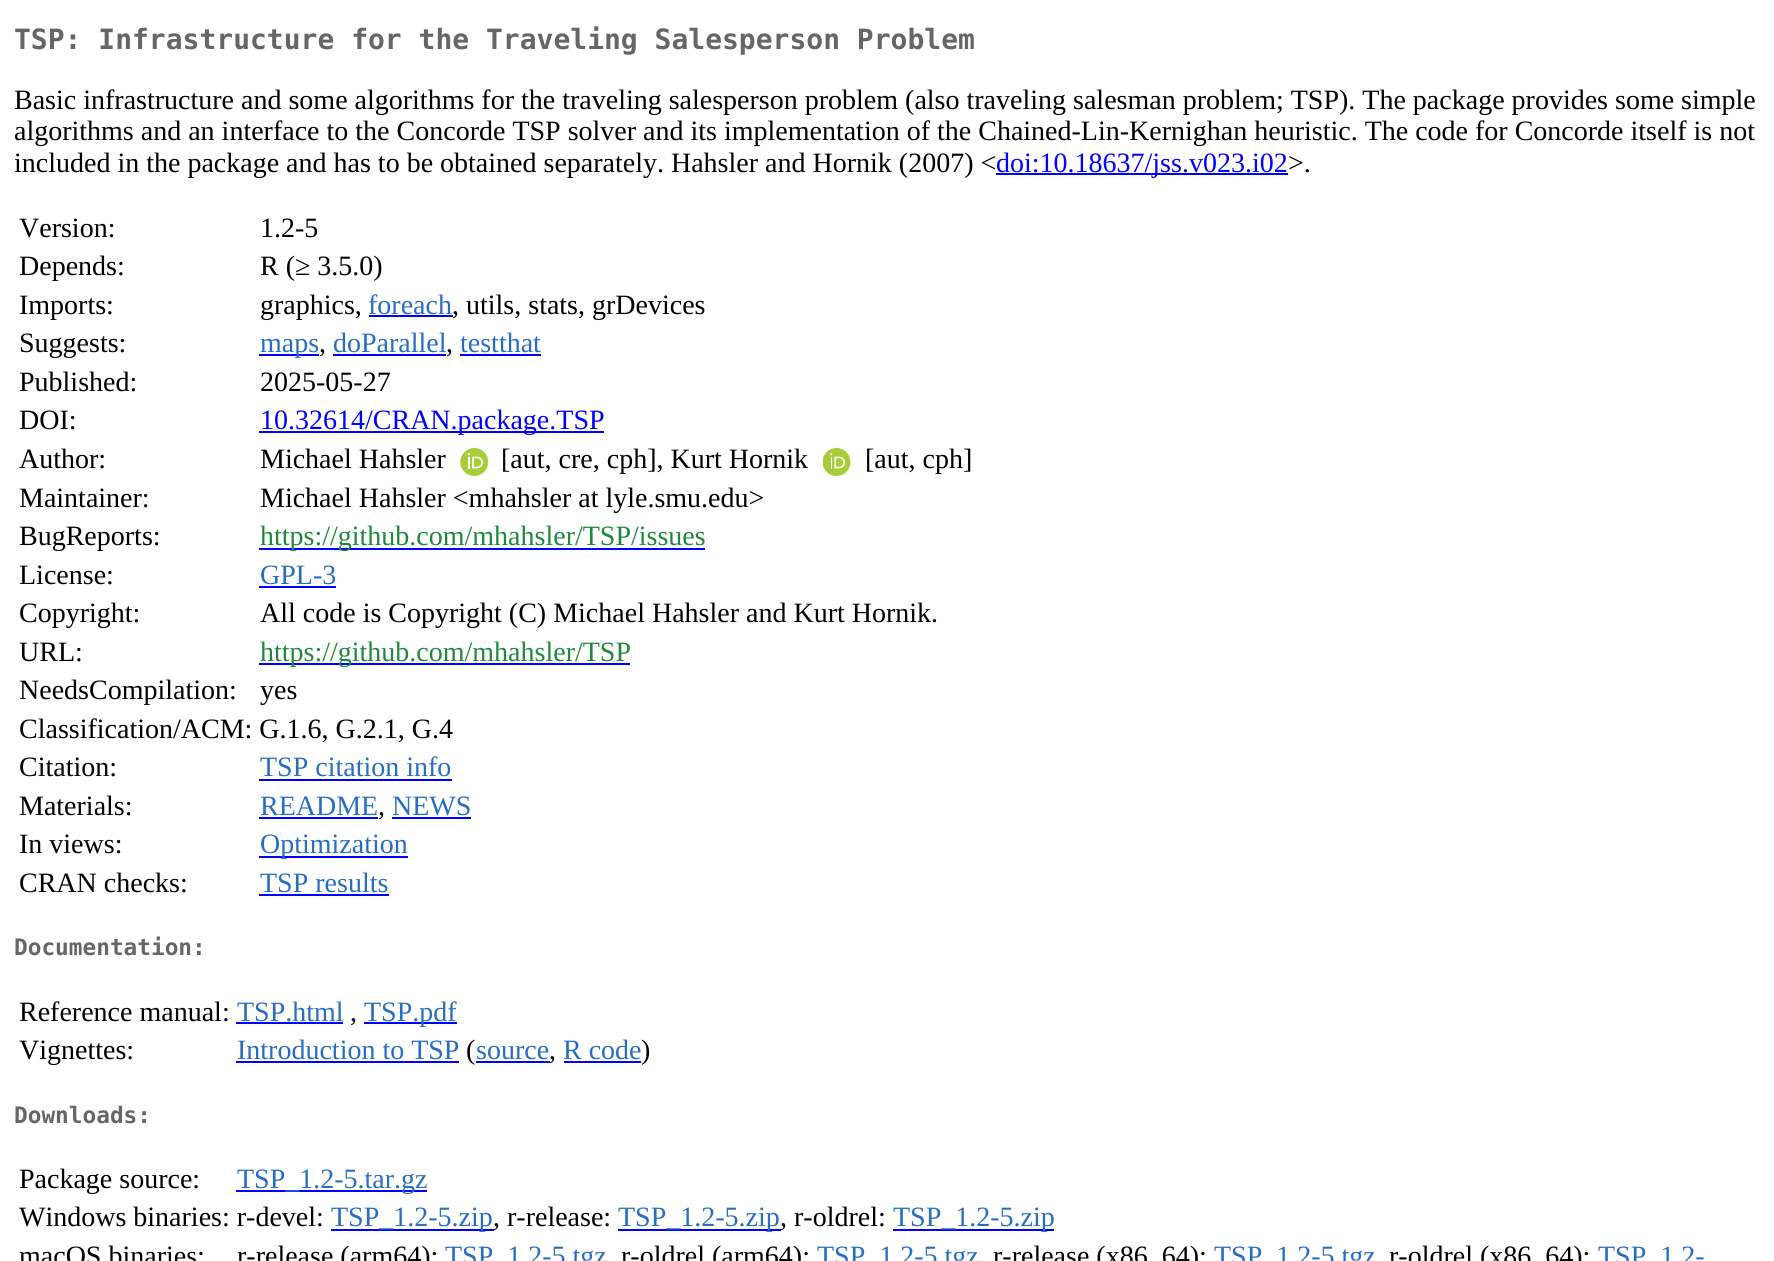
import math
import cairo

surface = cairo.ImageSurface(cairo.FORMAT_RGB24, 1774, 1261)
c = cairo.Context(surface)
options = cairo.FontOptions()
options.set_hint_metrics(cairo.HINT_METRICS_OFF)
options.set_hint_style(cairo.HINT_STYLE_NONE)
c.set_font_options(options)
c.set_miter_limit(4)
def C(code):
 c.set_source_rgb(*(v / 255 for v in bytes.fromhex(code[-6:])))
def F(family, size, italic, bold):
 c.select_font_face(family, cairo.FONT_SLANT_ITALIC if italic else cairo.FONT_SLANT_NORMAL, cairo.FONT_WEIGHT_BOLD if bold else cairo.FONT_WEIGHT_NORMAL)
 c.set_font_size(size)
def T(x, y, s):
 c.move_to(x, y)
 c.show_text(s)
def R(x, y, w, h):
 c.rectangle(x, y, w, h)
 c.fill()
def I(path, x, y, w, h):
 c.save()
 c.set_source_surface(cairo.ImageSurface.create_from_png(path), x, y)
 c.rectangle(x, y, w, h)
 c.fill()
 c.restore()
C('ffffff')
c.paint()
F('DejaVu Sans Mono',28,0,1)
C('666666')
T(14,49,'TSP: Infrastructure for the Traveling Salesperson Problem')
F('Liberation Serif',28,0,0)
C('000000')
T(14,109,'Basic infrastructure and some algorithms for the traveling salesperson problem (also traveling salesman problem; TSP). The package provides some simple')
T(14,140,'algorithms and an interface to the Concorde TSP solver and its implementation of the Chained-Lin-Kernighan heuristic. The code for Concorde itself is not')
T(14,172,'included in the package and has to be obtained separately. Hahsler and Hornik (2007) <')
C('0000ff')
R(996,173,292,2)
T(996,172,'doi:10.18637/jss.v023.i02')
C('000000')
T(1288,172,'>.')
T(19,237,'Version:')
T(260,237,'1.2-5')
T(19,275,'Depends:')
T(260,275,'R (≥ 3.5.0)')
T(19,314,'Imports:')
T(260,314,'graphics,')
C('276dc3')
T(368,314,'foreach')
C('0000ff')
R(369,315,84,2)
C('000000')
T(452,314,', utils, stats, grDevices')
T(19,352,'Suggests:')
C('0000ff')
R(259,354,60,2)
C('276dc3')
T(260,352,'maps')
C('000000')
T(319,352,',')
C('276dc3')
T(333,352,'doParallel')
C('0000ff')
R(333,354,113,2)
C('000000')
T(446,352,',')
C('276dc3')
T(460,352,'testthat')
C('0000ff')
R(460,354,81,2)
C('000000')
T(19,391,'Published:')
T(260,391,'2025-05-27')
T(19,429,'DOI:')
C('0000ff')
R(259,431,345,2)
T(260,429,'10.32614/CRAN.package.TSP')
C('000000')
T(19,468,'Author:')
T(260,468,'Michael Hahsler')
I('1.png',460,448,28,28)
T(501,468,'[aut, cre, cph], Kurt Hornik')
I('2.png',823,448,28,28)
T(865,468,'[aut, cph]')
T(19,507,'Maintainer:')
T(260,507,'Michael Hahsler <mhahsler at lyle.smu.edu>')
T(19,545,'BugReports:')
C('0000ff')
R(259,548,446,2)
C('1f883d')
T(260,545,'https://github.com/mhahsler/TSP/issues')
C('000000')
T(19,584,'License:')
C('276dc3')
T(260,584,'GPL-3')
C('0000ff')
R(259,586,77,2)
C('000000')
T(19,622,'Copyright:')
T(260,622,'All code is Copyright (C) Michael Hahsler and Kurt Hornik.')
T(19,661,'URL:')
C('0000ff')
R(259,663,371,2)
C('1f883d')
T(260,661,'https://github.com/mhahsler/TSP')
C('000000')
T(19,699,'NeedsCompilation:')
T(260,699,'yes')
T(19,738,'Classification/ACM: G.1.6, G.2.1, G.4')
T(19,776,'Citation:')
C('276dc3')
T(260,776,'TSP citation info')
C('0000ff')
R(259,779,193,2)
C('000000')
T(19,815,'Materials:')
C('276dc3')
T(260,815,'README')
C('0000ff')
R(259,817,119,2)
C('000000')
T(378,815,',')
C('276dc3')
T(392,815,'NEWS')
C('0000ff')
R(392,817,79,2)
C('000000')
T(19,853,'In views:')
C('0000ff')
R(259,856,149,2)
C('276dc3')
T(260,853,'Optimization')
C('000000')
T(19,892,'CRAN checks:')
C('276dc3')
T(260,892,'TSP results')
C('0000ff')
R(259,894,130,2)
F('DejaVu Sans Mono',22.75,0,1)
C('666666')
T(14,955,'Documentation:')
F('Liberation Serif',28,0,0)
C('000000')
T(19,1021,'Reference manual:')
C('276dc3')
T(237,1021,'TSP.html')
C('0000ff')
R(236,1022,107,2)
C('000000')
T(350,1021,',')
C('0000ff')
R(364,1022,93,2)
C('276dc3')
T(364,1021,'TSP.pdf')
C('000000')
T(19,1059,'Vignettes:')
C('276dc3')
T(237,1059,'Introduction to TSP')
C('0000ff')
R(236,1061,223,2)
C('000000')
T(466,1059,'(')
C('276dc3')
T(476,1059,'source')
C('0000ff')
R(476,1061,74,2)
C('000000')
T(549,1059,',')
C('276dc3')
T(563,1059,'R code')
C('0000ff')
R(564,1061,77,2)
C('000000')
T(641,1059,')')
F('DejaVu Sans Mono',22.75,0,1)
C('666666')
T(14,1123,'Downloads:')
F('Liberation Serif',28,0,0)
C('000000')
T(19,1188,'Package source:')
C('0000ff')
R(236,1190,191,2)
C('276dc3')
T(237,1188,'TSP_1.2-5.tar.gz')
C('000000')
T(19,1226,'Windows binaries: r-devel:')
C('0000ff')
R(331,1229,163,2)
C('276dc3')
T(331,1226,'TSP_1.2-5.zip')
C('000000')
T(493,1226,', r-release:')
C('0000ff')
R(618,1229,163,2)
C('276dc3')
T(618,1226,'TSP_1.2-5.zip')
C('000000')
T(780,1226,', r-oldrel:')
C('0000ff')
R(893,1229,161,2)
C('276dc3')
T(893,1226,'TSP_1.2-5.zip')
C('000000')
T(19,1265,'macOS binaries:')
T(237,1265,'r-release (arm64):')
C('276dc3')
T(445,1265,'TSP_1.2-5.tgz')
C('000000')
T(621,1265,'r-oldrel (arm64):')
C('276dc3')
T(817,1265,'TSP_1.2-5.tgz')
C('000000')
T(993,1265,'r-release (x86_64):')
C('276dc3')
T(1214,1265,'TSP_1.2-5.tgz')
C('000000')
T(1389,1265,'r-oldrel (x86_64):')
C('276dc3')
T(1598,1265,'TSP_1.2-')
surface.write_to_png('o.png')
